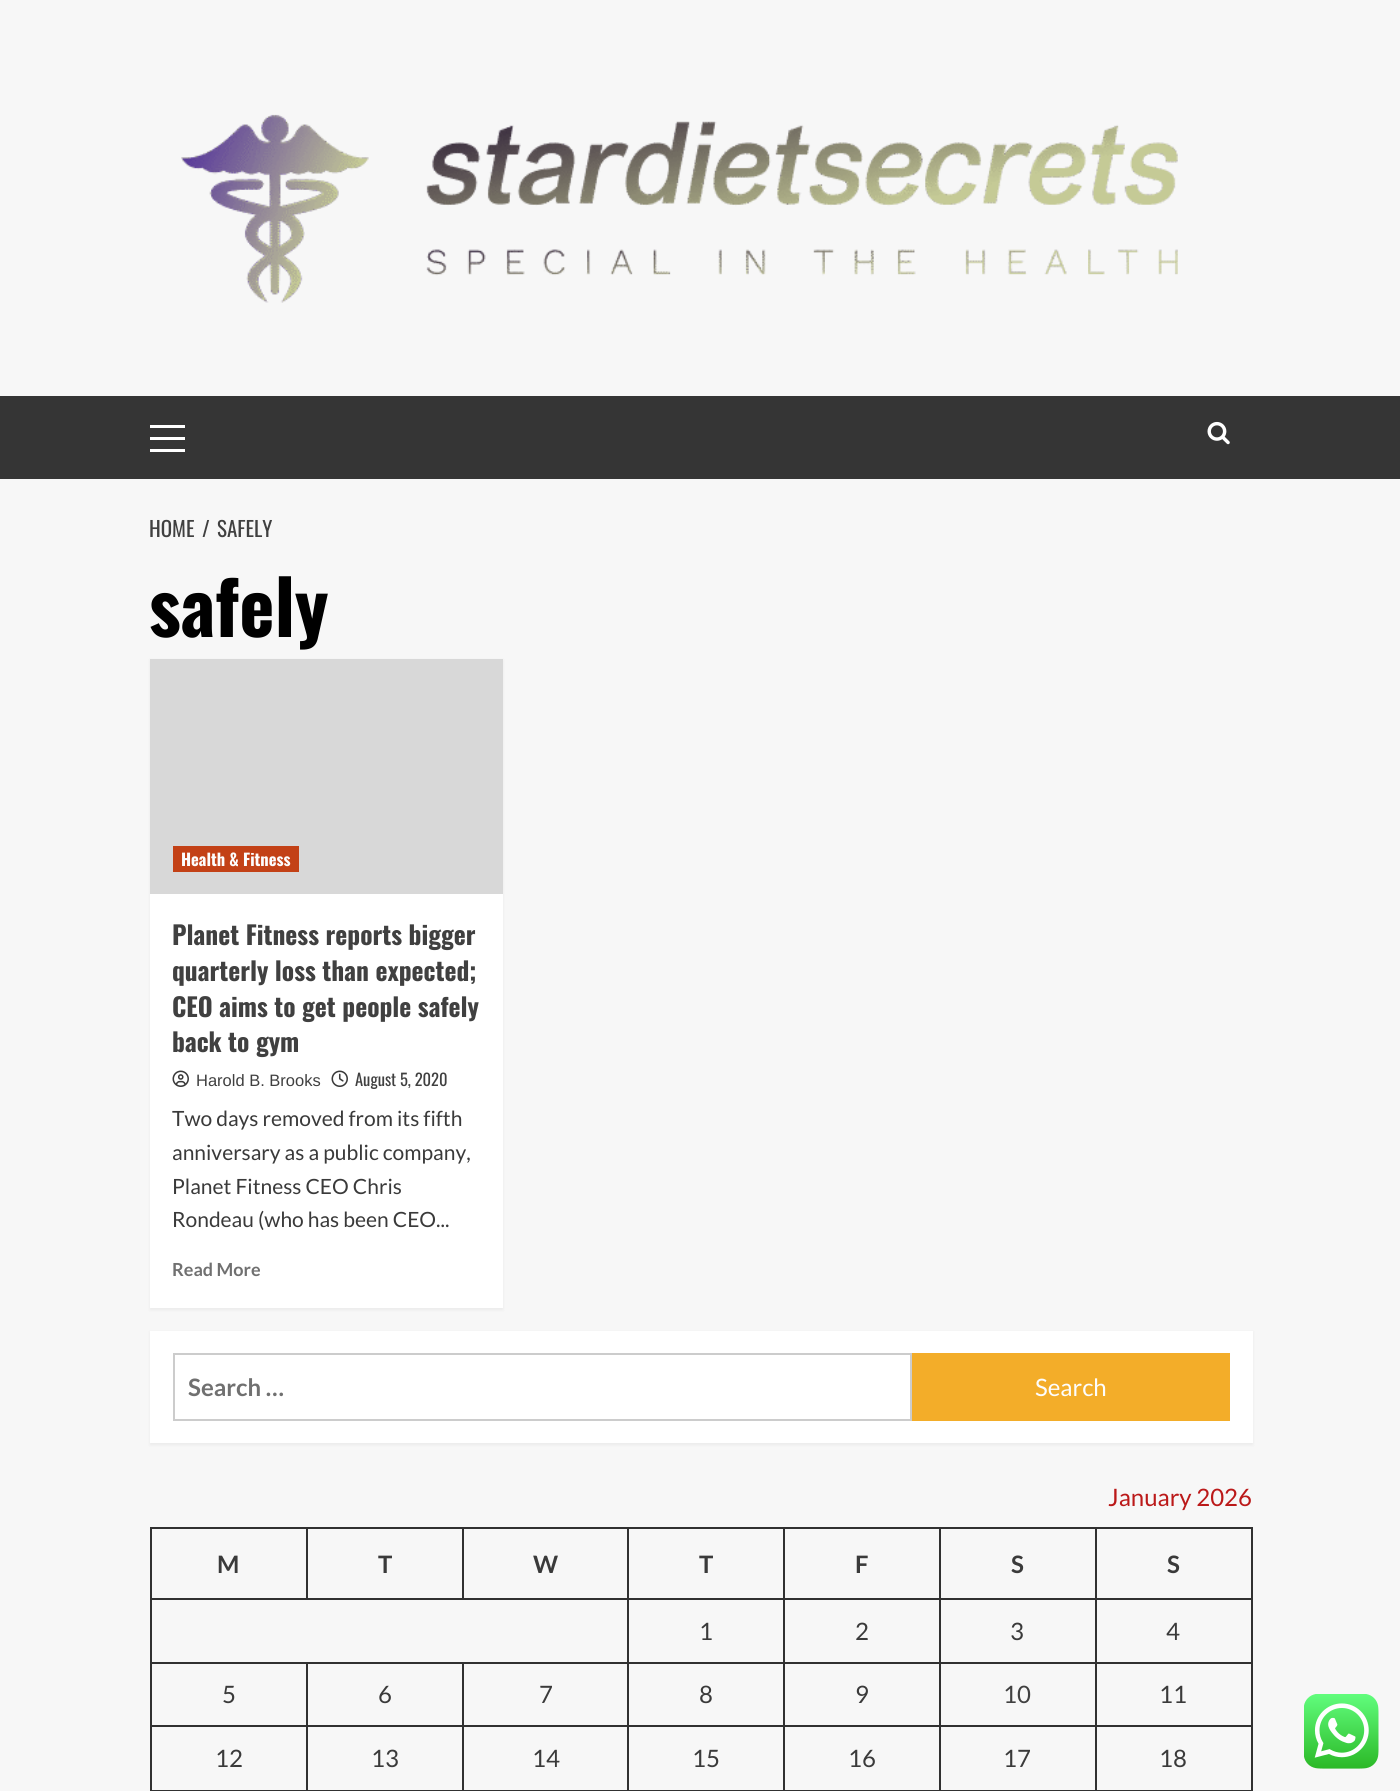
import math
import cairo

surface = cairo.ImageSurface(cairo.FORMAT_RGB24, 1400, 1791)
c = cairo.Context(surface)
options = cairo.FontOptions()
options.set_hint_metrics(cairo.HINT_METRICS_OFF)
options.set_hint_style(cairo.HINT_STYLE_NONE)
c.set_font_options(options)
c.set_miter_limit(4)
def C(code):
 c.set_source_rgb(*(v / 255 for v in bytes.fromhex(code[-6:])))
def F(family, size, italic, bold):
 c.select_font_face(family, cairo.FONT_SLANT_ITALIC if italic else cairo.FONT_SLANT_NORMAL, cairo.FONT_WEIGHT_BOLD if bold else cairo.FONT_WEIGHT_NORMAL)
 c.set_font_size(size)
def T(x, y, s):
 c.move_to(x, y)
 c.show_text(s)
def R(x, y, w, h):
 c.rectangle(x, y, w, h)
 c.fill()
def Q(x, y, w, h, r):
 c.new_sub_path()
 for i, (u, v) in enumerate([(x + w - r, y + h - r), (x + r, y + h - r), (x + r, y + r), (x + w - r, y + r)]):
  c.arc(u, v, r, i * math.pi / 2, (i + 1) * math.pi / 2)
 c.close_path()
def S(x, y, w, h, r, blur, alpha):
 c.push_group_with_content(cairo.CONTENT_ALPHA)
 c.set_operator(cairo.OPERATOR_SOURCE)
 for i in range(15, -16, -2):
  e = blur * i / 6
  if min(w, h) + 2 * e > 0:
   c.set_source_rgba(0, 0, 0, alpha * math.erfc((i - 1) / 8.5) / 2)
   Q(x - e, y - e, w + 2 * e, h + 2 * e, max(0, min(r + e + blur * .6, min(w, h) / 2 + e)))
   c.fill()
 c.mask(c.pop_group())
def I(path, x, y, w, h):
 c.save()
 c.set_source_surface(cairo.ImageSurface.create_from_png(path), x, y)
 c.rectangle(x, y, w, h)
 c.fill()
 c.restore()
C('f7f7f7')
c.paint()
I('1.png',181,114,997,189)
C('353535')
R(0,396,1400,83)
C('ffffff')
R(150,437,35,3)
R(150,425,35,3)
R(150,449,35,3)
I('2.png',1207,421,23,24)
F('Oswald',21,0,0)
C('404040')
T(149,537,'HOME')
T(202,537,'/')
T(217,537,'SAFELY')
F('Oswald',75,0,1)
C('000000')
T(149,637,'safely')
C('000000')
S(150,660,353,650,0,1.5,.05)
C('ffffff')
R(150,894,353,414)
C('d8d8d8')
R(150,659,353,235)
C('c34116')
R(173,846,126,26)
F('Oswald',16.5,0,1)
C('fdfdfd')
T(181,866,'Health & Fitness')
F('Oswald',25.5,0,1)
C('404040')
T(172,945,'Planet Fitness reports bigger')
T(172,981,'quarterly loss than expected;')
T(172,1017,'CEO aims to get people safely')
T(172,1052,'back to gym')
I('3.png',172,1070,17,17)
F('Liberation Sans',16.5,0,0)
T(196,1086,'Harold B. Brooks')
I('4.png',331,1070,17,17)
F('Oswald',16.5,0,0)
T(355,1086,'August 5, 2020')
F('Lato',21,0,0)
C('3a3a3a')
T(172,1126,'Two days removed from its fifth')
T(172,1160,'anniversary as a public company,')
T(172,1194,'Planet Fitness CEO Chris')
T(172,1227,'Rondeau (who has been CEO...')
F('Lato',18,0,1)
C('707070')
T(172,1276,'Read More')
C('000000')
S(150,1332,1103,113,0,1.5,.05)
C('ffffff')
R(150,1331,1103,112)
c.rectangle(174,1354,737,66)
C('cccccc')
c.stroke()
F('Lato',24,0,1)
C('707070')
T(188,1396,'Search …')
C('f3ad29')
R(912,1353,318,68)
F('Lato',24,0,0)
C('fdfdfd')
T(1035,1396,'Search')
C('bb1919')
T(1108,1506,'January 2026')
C('313131')
R(1095,1527,158,2)
R(1095,1598,158,2)
R(1095,1662,158,2)
R(1095,1725,158,2)
R(150,1790,1103,1)
R(1095,1725,2,66)
R(939,1725,158,2)
R(1095,1662,2,65)
R(939,1662,158,2)
R(1095,1598,2,66)
R(939,1598,158,2)
R(1095,1527,2,72)
R(939,1527,158,2)
R(939,1725,2,66)
R(783,1725,158,2)
R(939,1662,2,65)
R(783,1662,158,2)
R(939,1598,2,66)
R(783,1598,158,2)
R(939,1527,2,72)
R(783,1527,158,2)
R(783,1725,2,66)
R(627,1725,158,2)
R(783,1662,2,65)
R(627,1662,158,2)
R(783,1598,2,66)
R(627,1598,158,2)
R(783,1527,2,72)
R(627,1527,158,2)
R(627,1725,2,66)
R(462,1725,167,2)
R(627,1662,2,65)
R(462,1662,167,2)
R(627,1598,2,66)
R(150,1598,479,2)
R(627,1527,2,72)
R(462,1527,167,2)
R(462,1527,2,72)
R(306,1527,158,2)
R(306,1527,2,72)
R(150,1527,158,2)
R(462,1725,2,66)
R(306,1725,158,2)
R(462,1662,2,65)
R(306,1662,158,2)
R(306,1725,2,66)
R(150,1725,158,2)
R(306,1662,2,65)
R(150,1662,158,2)
R(150,1725,2,66)
R(150,1662,2,65)
R(150,1598,2,66)
R(150,1527,2,72)
F('Lato',24,0,1)
C('3a3a3a')
T(217,1573,'M')
T(378,1573,'T')
T(533,1573,'W')
T(699,1573,'T')
T(855,1573,'F')
T(1011,1573,'S')
C('313131')
R(1251,1725,2,66)
R(1251,1662,2,65)
R(1251,1598,2,66)
R(1251,1527,2,72)
C('3a3a3a')
T(1167,1573,'S')
F('Lato',24,0,0)
T(699,1640,'1')
T(855,1640,'2')
T(1010,1640,'3')
T(1166,1640,'4')
T(222,1703,'5')
T(378,1703,'6')
T(539,1703,'7')
T(699,1703,'8')
T(855,1703,'9')
C('404040')
T(1003,1703,'10')
C('3a3a3a')
T(1159,1703,'11')
T(215,1767,'12')
T(371,1767,'13')
T(532,1767,'14')
T(692,1767,'15')
T(848,1767,'16')
T(1003,1767,'17')
T(1159,1767,'18')
I('5.png',1304,1694,75,75)
surface.write_to_png('o.png')
